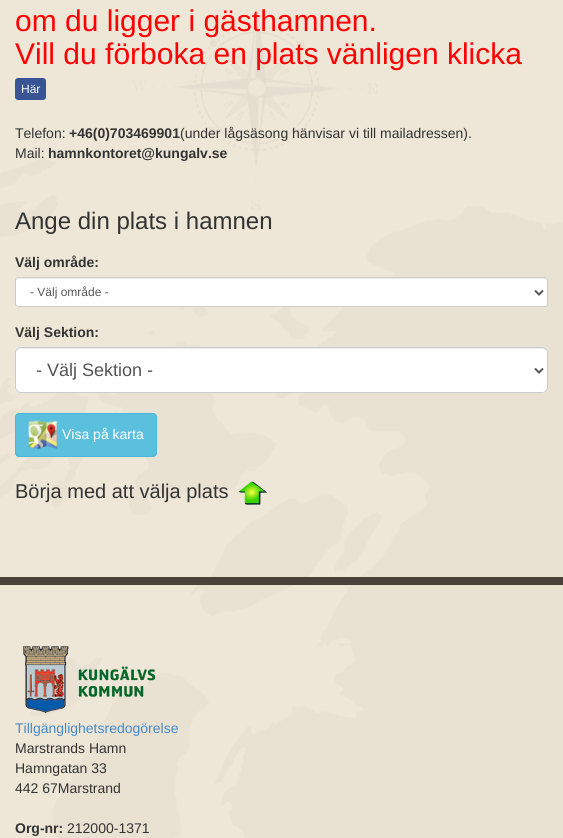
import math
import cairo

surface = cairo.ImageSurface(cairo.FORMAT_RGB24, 563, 838)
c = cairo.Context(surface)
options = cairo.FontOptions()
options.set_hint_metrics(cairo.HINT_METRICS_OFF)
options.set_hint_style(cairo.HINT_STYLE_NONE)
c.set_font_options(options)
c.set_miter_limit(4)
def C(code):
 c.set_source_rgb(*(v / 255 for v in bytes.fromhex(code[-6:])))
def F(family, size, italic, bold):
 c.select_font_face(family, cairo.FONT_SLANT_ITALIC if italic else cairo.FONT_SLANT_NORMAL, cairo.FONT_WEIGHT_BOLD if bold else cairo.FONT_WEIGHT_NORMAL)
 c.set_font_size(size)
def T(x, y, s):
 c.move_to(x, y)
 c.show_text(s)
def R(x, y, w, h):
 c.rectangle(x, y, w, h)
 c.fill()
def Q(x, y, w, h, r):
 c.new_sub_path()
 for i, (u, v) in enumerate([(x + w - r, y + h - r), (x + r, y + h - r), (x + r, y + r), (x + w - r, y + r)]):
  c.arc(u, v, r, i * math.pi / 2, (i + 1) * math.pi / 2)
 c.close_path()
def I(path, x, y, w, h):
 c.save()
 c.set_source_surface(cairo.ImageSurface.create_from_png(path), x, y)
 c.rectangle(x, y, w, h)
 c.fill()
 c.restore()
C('eee7d8')
c.paint()
I('1.png',0,9,563,829)
F('Liberation Sans',30,0,0)
C('ff0000')
T(15,31,'om du ligger i gästhamnen.')
T(15,64,'Vill du förboka en plats vänligen klicka')
C('385494')
Q(15.5,78.5,30,21,2.5)
c.fill_preserve()
c.set_line_width(1)
c.stroke()
F('Liberation Sans',12,0,0)
C('ffffff')
T(21,93,'Här')
F('Liberation Sans',14,0,0)
C('333333')
T(15,138,'Telefon:')
F('Liberation Sans',14,0,1)
T(69,138,'+46(0)703469901')
F('Liberation Sans',14,0,0)
T(180,138,'(under lågsäsong hänvisar vi till mailadressen).')
T(15,158,'Mail:')
F('Liberation Sans',14,0,1)
T(48,158,'hamnkontoret@kungalv.se')
F('Liberation Sans',24,0,0)
T(15,229,'Ange din plats i hamnen')
F('Liberation Sans',14,0,1)
T(15,267,'Välj område:')
C('ffffff')
Q(15,277,533,30,3)
c.fill()
C('ececec')
c.new_path()
c.move_to(18,279)
c.line_to(545,279)
c.curve_to(546,279,547,280,547,281)
c.curve_to(547,280,547,278,545,278)
c.line_to(18,278)
c.line_to(16,279)
c.line_to(16,281)
c.curve_to(16,280,17,279,18,279)
c.close_path()
c.fill()
Q(15.5,277.5,532,29,2.5)
C('cccccc')
c.stroke()
c.new_path()
c.move_to(535,290.5)
c.line_to(539,294.5)
c.line_to(543,290.5)
C('555555')
c.set_line_width(2)
c.stroke()
F('Liberation Sans',12,0,0)
T(30,296,'- Välj område -')
F('Liberation Sans',14,0,1)
C('333333')
T(15,337,'Välj Sektion:')
C('ffffff')
Q(15,347,533,46,6)
c.fill()
C('ececec')
c.new_path()
c.move_to(21,349)
c.line_to(542,349)
c.curve_to(545,349,547,351,547,354)
c.curve_to(547,351,545,348,542,348)
c.line_to(21,348)
c.curve_to(18,348,16,351,16,354)
c.curve_to(16,351,18,349,21,349)
c.close_path()
c.fill()
Q(15.5,347.5,532,45,5.5)
C('cccccc')
c.set_line_width(1)
c.stroke()
c.new_path()
c.move_to(535,368.5)
c.line_to(539,372.5)
c.line_to(543,368.5)
C('555555')
c.set_line_width(2)
c.stroke()
F('Liberation Sans',18,0,0)
T(36,376,'- Välj Sektion -')
C('5bc0de')
Q(15.5,413.5,141,43,3.5)
c.fill_preserve()
C('46b8da')
c.set_line_width(1)
c.stroke()
I('2.png',28,420,30,30)
F('Liberation Sans',14,0,0)
C('ffffff')
T(62,439,'Visa på karta')
F('Liberation Sans',20,0,0)
C('333333')
T(15,498,'Börja med att välja plats')
I('3.png',239,481,29,24)
C('49423b')
R(0,577,563,8)
I('4.png',22,646,134,68)
F('Liberation Sans',14,0,0)
C('428bca')
T(15,733,'Tillgänglighetsredogörelse')
C('333333')
T(15,753,'Marstrands Hamn')
T(15,773,'Hamngatan 33')
T(15,793,'442 67Marstrand')
F('Liberation Sans',14,0,1)
T(15,833,'Org-nr:')
F('Liberation Sans',14,0,0)
T(67,833,'212000-1371')
surface.write_to_png('o.png')
